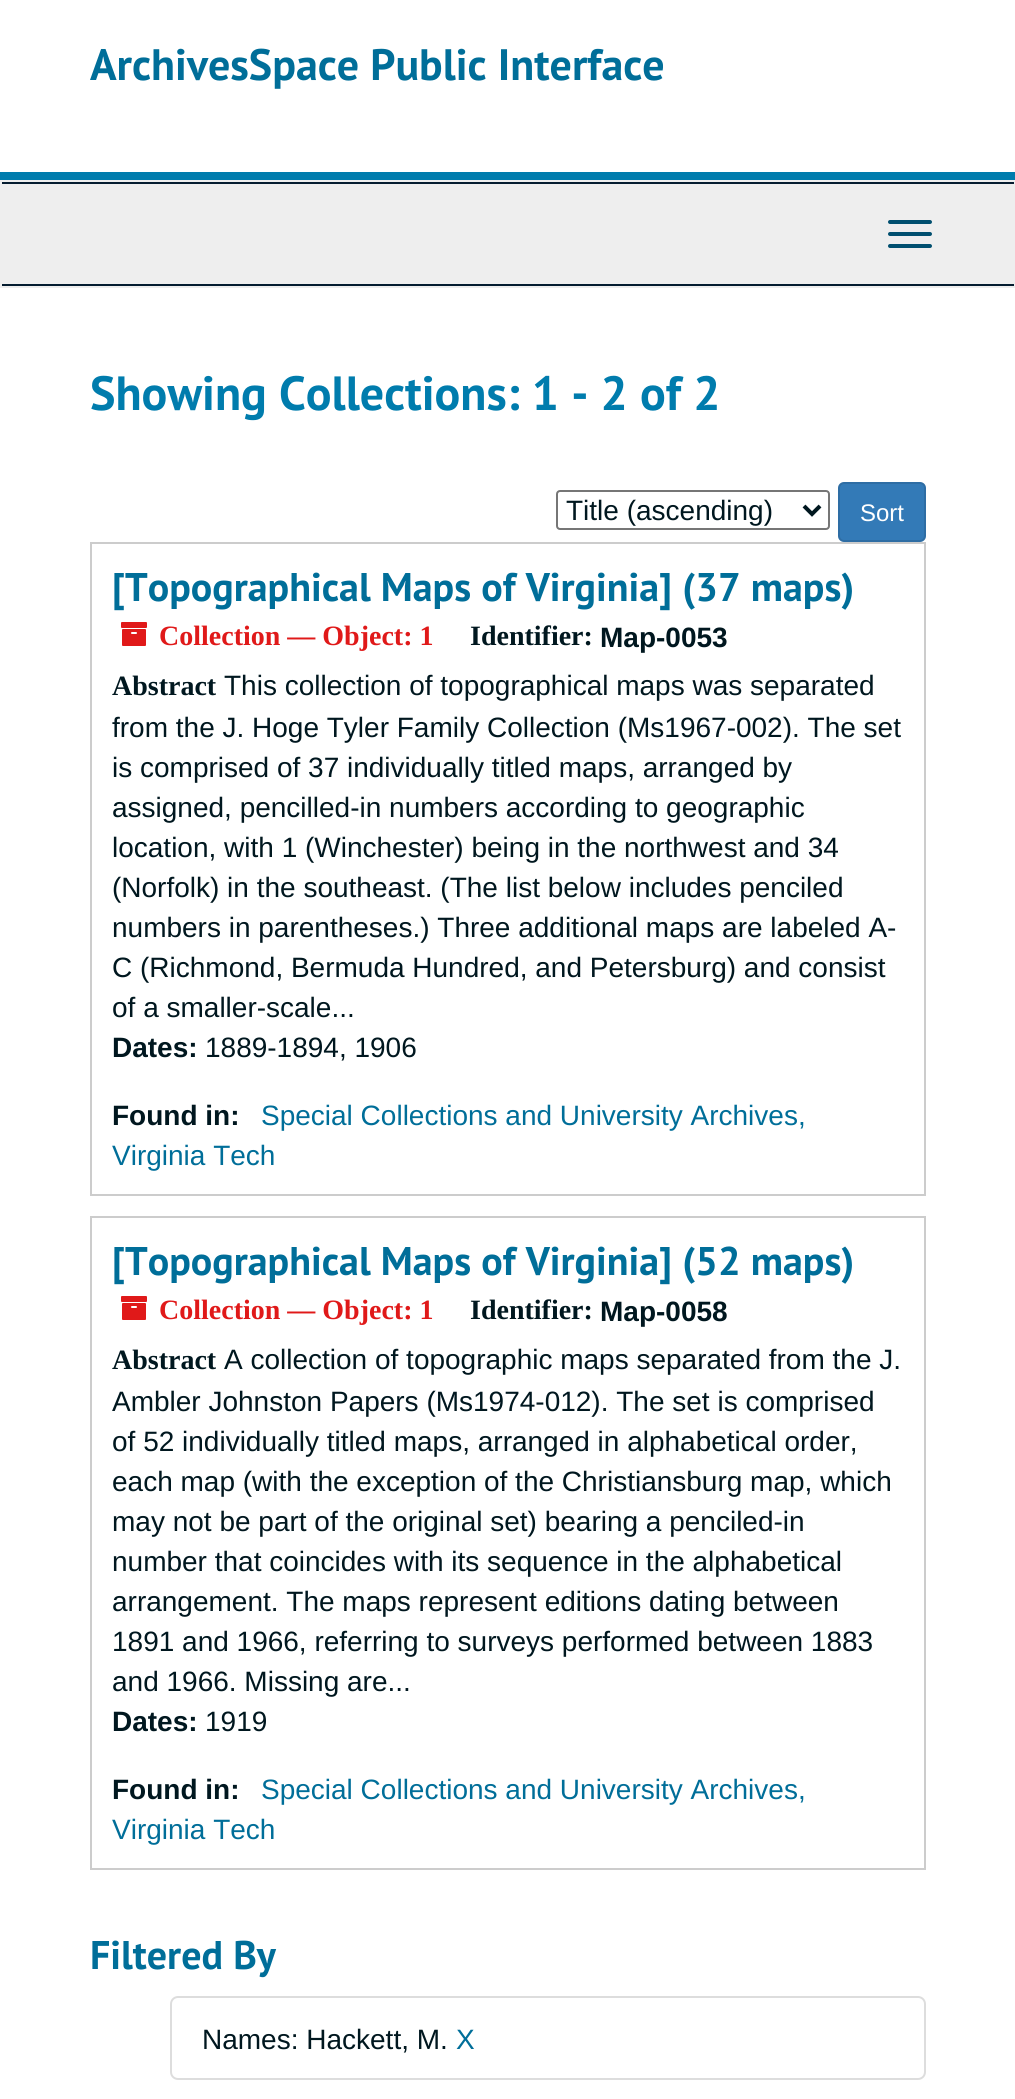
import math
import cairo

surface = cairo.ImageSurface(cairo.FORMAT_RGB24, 1015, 2099)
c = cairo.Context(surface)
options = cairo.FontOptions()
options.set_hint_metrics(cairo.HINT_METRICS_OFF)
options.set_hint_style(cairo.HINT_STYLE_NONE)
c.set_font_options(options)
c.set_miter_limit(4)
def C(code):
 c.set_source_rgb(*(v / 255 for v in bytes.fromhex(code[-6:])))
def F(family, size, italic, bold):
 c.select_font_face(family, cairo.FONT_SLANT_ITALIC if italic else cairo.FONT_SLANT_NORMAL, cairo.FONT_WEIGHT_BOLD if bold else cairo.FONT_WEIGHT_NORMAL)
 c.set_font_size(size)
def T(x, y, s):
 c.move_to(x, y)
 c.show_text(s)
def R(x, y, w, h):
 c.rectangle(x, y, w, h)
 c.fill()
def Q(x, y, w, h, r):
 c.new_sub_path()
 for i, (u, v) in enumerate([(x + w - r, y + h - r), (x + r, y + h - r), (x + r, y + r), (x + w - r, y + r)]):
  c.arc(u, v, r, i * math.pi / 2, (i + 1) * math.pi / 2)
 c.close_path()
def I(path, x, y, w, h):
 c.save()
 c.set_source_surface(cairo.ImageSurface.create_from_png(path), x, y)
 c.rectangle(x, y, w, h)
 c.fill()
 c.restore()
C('ffffff')
c.paint()
C('007cad')
R(0,172,1015,8)
F('PT Sans',44,0,1)
C('006e99')
T(90,80,'ArchivesSpace Public Interface')
C('eeeeee')
R(0,180,1015,108)
C('041c2f')
R(2,182,1012,2)
R(2,284,1012,2)
C('004f6f')
Q(888,220,44,4,2)
c.fill()
Q(888,232,44,4,2)
c.fill()
Q(888,244,44,4,2)
c.fill()
F('PT Sans',48,0,1)
C('007cad')
T(90,410,'Showing Collections: 1 - 2 of 2')
Q(557,491,272,38,3)
C('767676')
c.stroke()
c.new_path()
c.move_to(804,506)
c.line_to(812,514)
c.line_to(820,506)
C('00171f')
c.set_line_width(4)
c.stroke()
F('Liberation Sans',28,0,0)
T(566,520,'Title (ascending)')
C('337ab7')
Q(839,483,86,58,5)
c.fill_preserve()
C('2e6da4')
c.set_line_width(2)
c.stroke()
F('Liberation Sans',24,0,0)
C('ffffff')
T(860,521,'Sort')
c.rectangle(91,543,834,652)
C('cccccc')
c.stroke()
F('PT Sans',40,0,1)
C('006e99')
T(112,601,'[Topographical Maps of Virginia] (37 maps)')
I('1.png',121,622,26,24)
F('Liberation Serif',28,0,1)
C('e01919')
T(159,645,'Collection — Object: 1')
C('00171f')
T(470,645,'Identifier:')
F('Liberation Sans',28,0,1)
T(600,647,'Map-0053')
F('Liberation Serif',28,0,1)
T(112,695,'Abstract')
F('Liberation Sans',28,0,0)
T(224,695,'This collection of topographical maps was separated')
T(112,737,'from the J. Hoge Tyler Family Collection (Ms1967-002). The set')
T(112,777,'is comprised of 37 individually titled maps, arranged by')
T(112,817,'assigned, pencilled-in numbers according to geographic')
T(112,857,'location, with 1 (Winchester) being in the northwest and 34')
T(112,897,'(Norfolk) in the southeast. (The list below includes penciled')
T(112,937,'numbers in parentheses.) Three additional maps are labeled A-')
T(112,977,'C (Richmond, Bermuda Hundred, and Petersburg) and consist')
T(112,1017,'of a smaller-scale...')
F('Liberation Sans',28,0,1)
T(112,1057,'Dates:')
F('Liberation Sans',28,0,0)
T(205,1057,'1889-1894, 1906')
F('Liberation Sans',28,0,1)
T(112,1125,'Found in:')
F('Liberation Sans',28,0,0)
C('006e99')
T(261,1125,'Special Collections and University Archives,')
T(112,1165,'Virginia Tech')
c.rectangle(91,1217,834,652)
C('cccccc')
c.stroke()
F('PT Sans',40,0,1)
C('006e99')
T(112,1275,'[Topographical Maps of Virginia] (52 maps)')
I('1.png',121,1296,26,24)
F('Liberation Serif',28,0,1)
C('e01919')
T(159,1319,'Collection — Object: 1')
C('00171f')
T(470,1319,'Identifier:')
F('Liberation Sans',28,0,1)
T(600,1321,'Map-0058')
F('Liberation Serif',28,0,1)
T(112,1369,'Abstract')
F('Liberation Sans',28,0,0)
T(224,1369,'A collection of topographic maps separated from the J.')
T(112,1411,'Ambler Johnston Papers (Ms1974-012). The set is comprised')
T(112,1451,'of 52 individually titled maps, arranged in alphabetical order,')
T(112,1491,'each map (with the exception of the Christiansburg map, which')
T(112,1531,'may not be part of the original set) bearing a penciled-in')
T(112,1571,'number that coincides with its sequence in the alphabetical')
T(112,1611,'arrangement. The maps represent editions dating between')
T(112,1651,'1891 and 1966, referring to surveys performed between 1883')
T(112,1691,'and 1966. Missing are...')
F('Liberation Sans',28,0,1)
T(112,1731,'Dates:')
F('Liberation Sans',28,0,0)
T(205,1731,'1919')
F('Liberation Sans',28,0,1)
T(112,1799,'Found in:')
F('Liberation Sans',28,0,0)
C('006e99')
T(261,1799,'Special Collections and University Archives,')
T(112,1839,'Virginia Tech')
F('PT Sans',40,0,1)
T(90,1969,'Filtered By')
Q(171,1997,754,82,7)
C('dddddd')
c.stroke()
F('Liberation Sans',28,0,0)
C('00171f')
T(202,2049,'Names: Hackett, M.')
C('006e99')
T(456,2049,'X')
surface.write_to_png('o.png')
